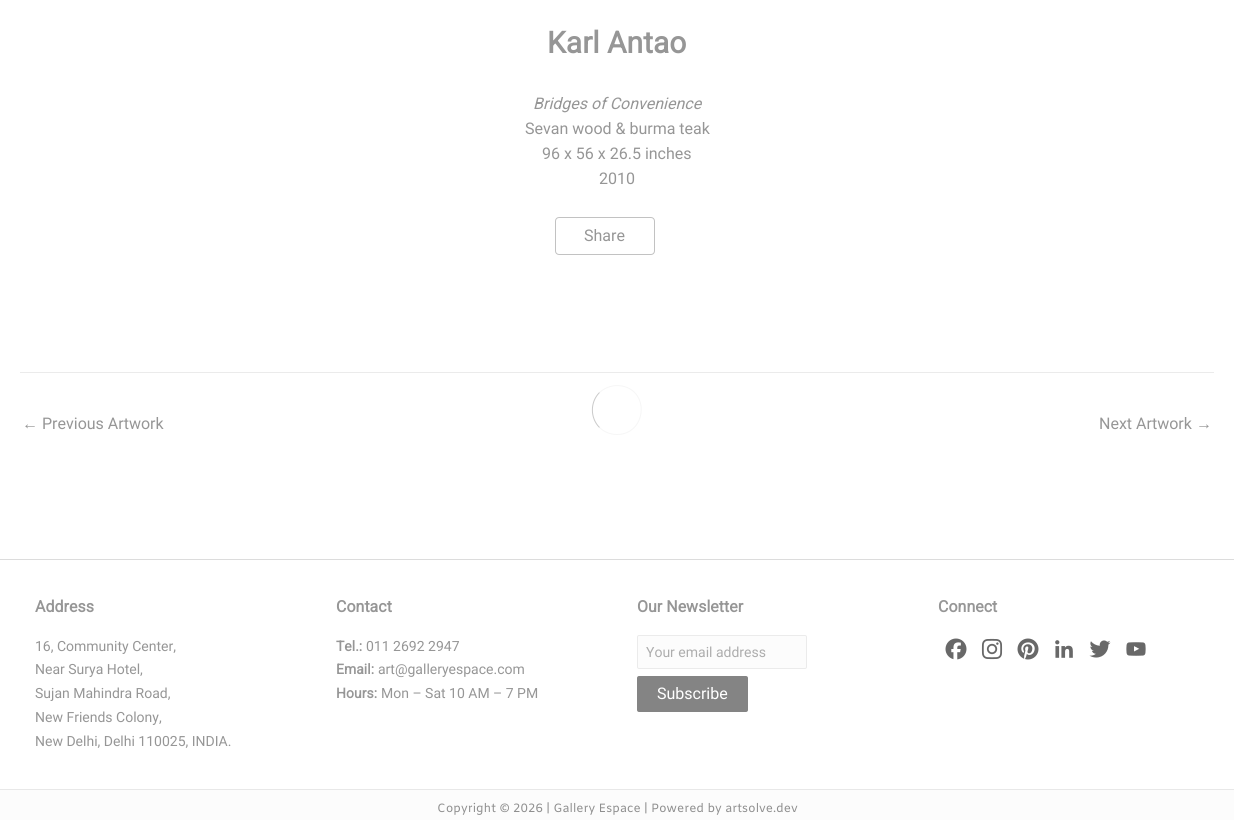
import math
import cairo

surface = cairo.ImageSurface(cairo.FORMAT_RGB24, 1234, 820)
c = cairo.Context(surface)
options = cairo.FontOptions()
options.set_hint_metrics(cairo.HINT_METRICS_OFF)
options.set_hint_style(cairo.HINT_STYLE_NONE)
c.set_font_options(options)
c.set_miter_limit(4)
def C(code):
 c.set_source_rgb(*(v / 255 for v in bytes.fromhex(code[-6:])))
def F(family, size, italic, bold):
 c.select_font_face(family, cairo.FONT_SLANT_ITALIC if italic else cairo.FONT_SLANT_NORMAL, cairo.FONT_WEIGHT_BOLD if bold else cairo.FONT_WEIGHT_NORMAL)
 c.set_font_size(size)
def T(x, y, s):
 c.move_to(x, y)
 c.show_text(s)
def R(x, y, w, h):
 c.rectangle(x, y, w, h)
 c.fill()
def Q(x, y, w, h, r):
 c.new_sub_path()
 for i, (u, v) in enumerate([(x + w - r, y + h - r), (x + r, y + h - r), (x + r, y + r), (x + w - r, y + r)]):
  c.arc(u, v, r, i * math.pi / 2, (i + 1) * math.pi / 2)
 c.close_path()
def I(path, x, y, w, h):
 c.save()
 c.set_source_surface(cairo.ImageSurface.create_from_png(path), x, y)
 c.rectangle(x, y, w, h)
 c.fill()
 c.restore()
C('ffffff')
c.paint()
F('Roboto',30,0,1)
C('969696')
T(547,53,'Karl Antao')
F('Roboto',16,1,0)
T(533,109,'Bridges of Convenience')
F('Roboto',16,0,0)
T(525,134,'Sevan wood & burma teak')
T(542,159,'96 x 56 x 26.5 inches')
T(599,184,'2010')
Q(555.5,217.5,99,37,3.5)
C('c2c2c2')
c.set_line_width(1)
c.stroke()
C('969696')
T(584,241,'Share')
C('ebebeb')
R(20,372,1194,1)
F('Liberation Sans',16,0,0)
C('969696')
T(22,429,'←')
F('Roboto',16,0,0)
T(42,429,'Previous Artwork')
T(1099,429,'Next Artwork')
F('Liberation Sans',16,0,0)
T(1196,429,'→')
C('dcdcdc')
R(0,559,1234,1)
F('Roboto',16,0,1)
C('969696')
T(35,612,'Address')
F('Roboto',14,0,0)
T(35,651,'16, Community Center,')
T(35,674,'Near Surya Hotel,')
T(35,698,'Sujan Mahindra Road,')
T(35,722,'New Friends Colony,')
T(35,746,'New Delhi, Delhi 110025, INDIA.')
F('Roboto',16,0,1)
T(336,612,'Contact')
F('Roboto',14,0,1)
T(336,651,'Tel.:')
F('Roboto',14,0,0)
T(366,651,'011 2692 2947')
F('Roboto',14,0,1)
T(336,674,'Email:')
F('Roboto',14,0,0)
T(378,674,'art@galleryespace.com')
F('Roboto',14,0,1)
T(336,698,'Hours:')
F('Roboto',14,0,0)
T(381,698,'Mon – Sat 10 AM – 7 PM')
F('Roboto',16,0,1)
T(637,612,'Our Newsletter')
C('fcfcfc')
Q(637.5,635.5,169,33,1.5)
c.fill_preserve()
C('ebebeb')
c.stroke()
F('Roboto',14,0,0)
C('adadad')
T(646,657,'Your email address')
C('848484')
Q(637,676,111,36,2)
c.fill()
F('Roboto',16,0,0)
C('ffffff')
T(657,699,'Subscribe')
F('Roboto',16,0,1)
C('969696')
T(938,612,'Connect')
I('1.png',945,638,22,22)
I('2.png',981,638,22,22)
I('3.png',1017,638,22,22)
I('4.png',1055,640,18,18)
I('5.png',1089,640,22,18)
I('6.png',1126,642,20,14)
C('e8e8e8')
R(0,789,1234,1)
C('fcfcfc')
R(0,790,1234,30)
F('Amiko',12,0,0)
C('8f8f8f')
T(437,812,'Copyright © 2026 | Gallery Espace | Powered by artsolve.dev')
c.new_path()
c.move_to(599.5,392.5)
c.curve_to(605.5,387,614,384.5,622,386)
c.curve_to(650.5,391.5,646,434.5,617,434.5)
c.curve_to(610.5,434.5,604,432,599.5,427.5)
C('f6f6f6')
c.stroke()
c.new_path()
c.move_to(599.5,427.5)
c.curve_to(590,418,590,402,599.5,392.5)
C('cacaca')
c.stroke()
surface.write_to_png('o.png')
